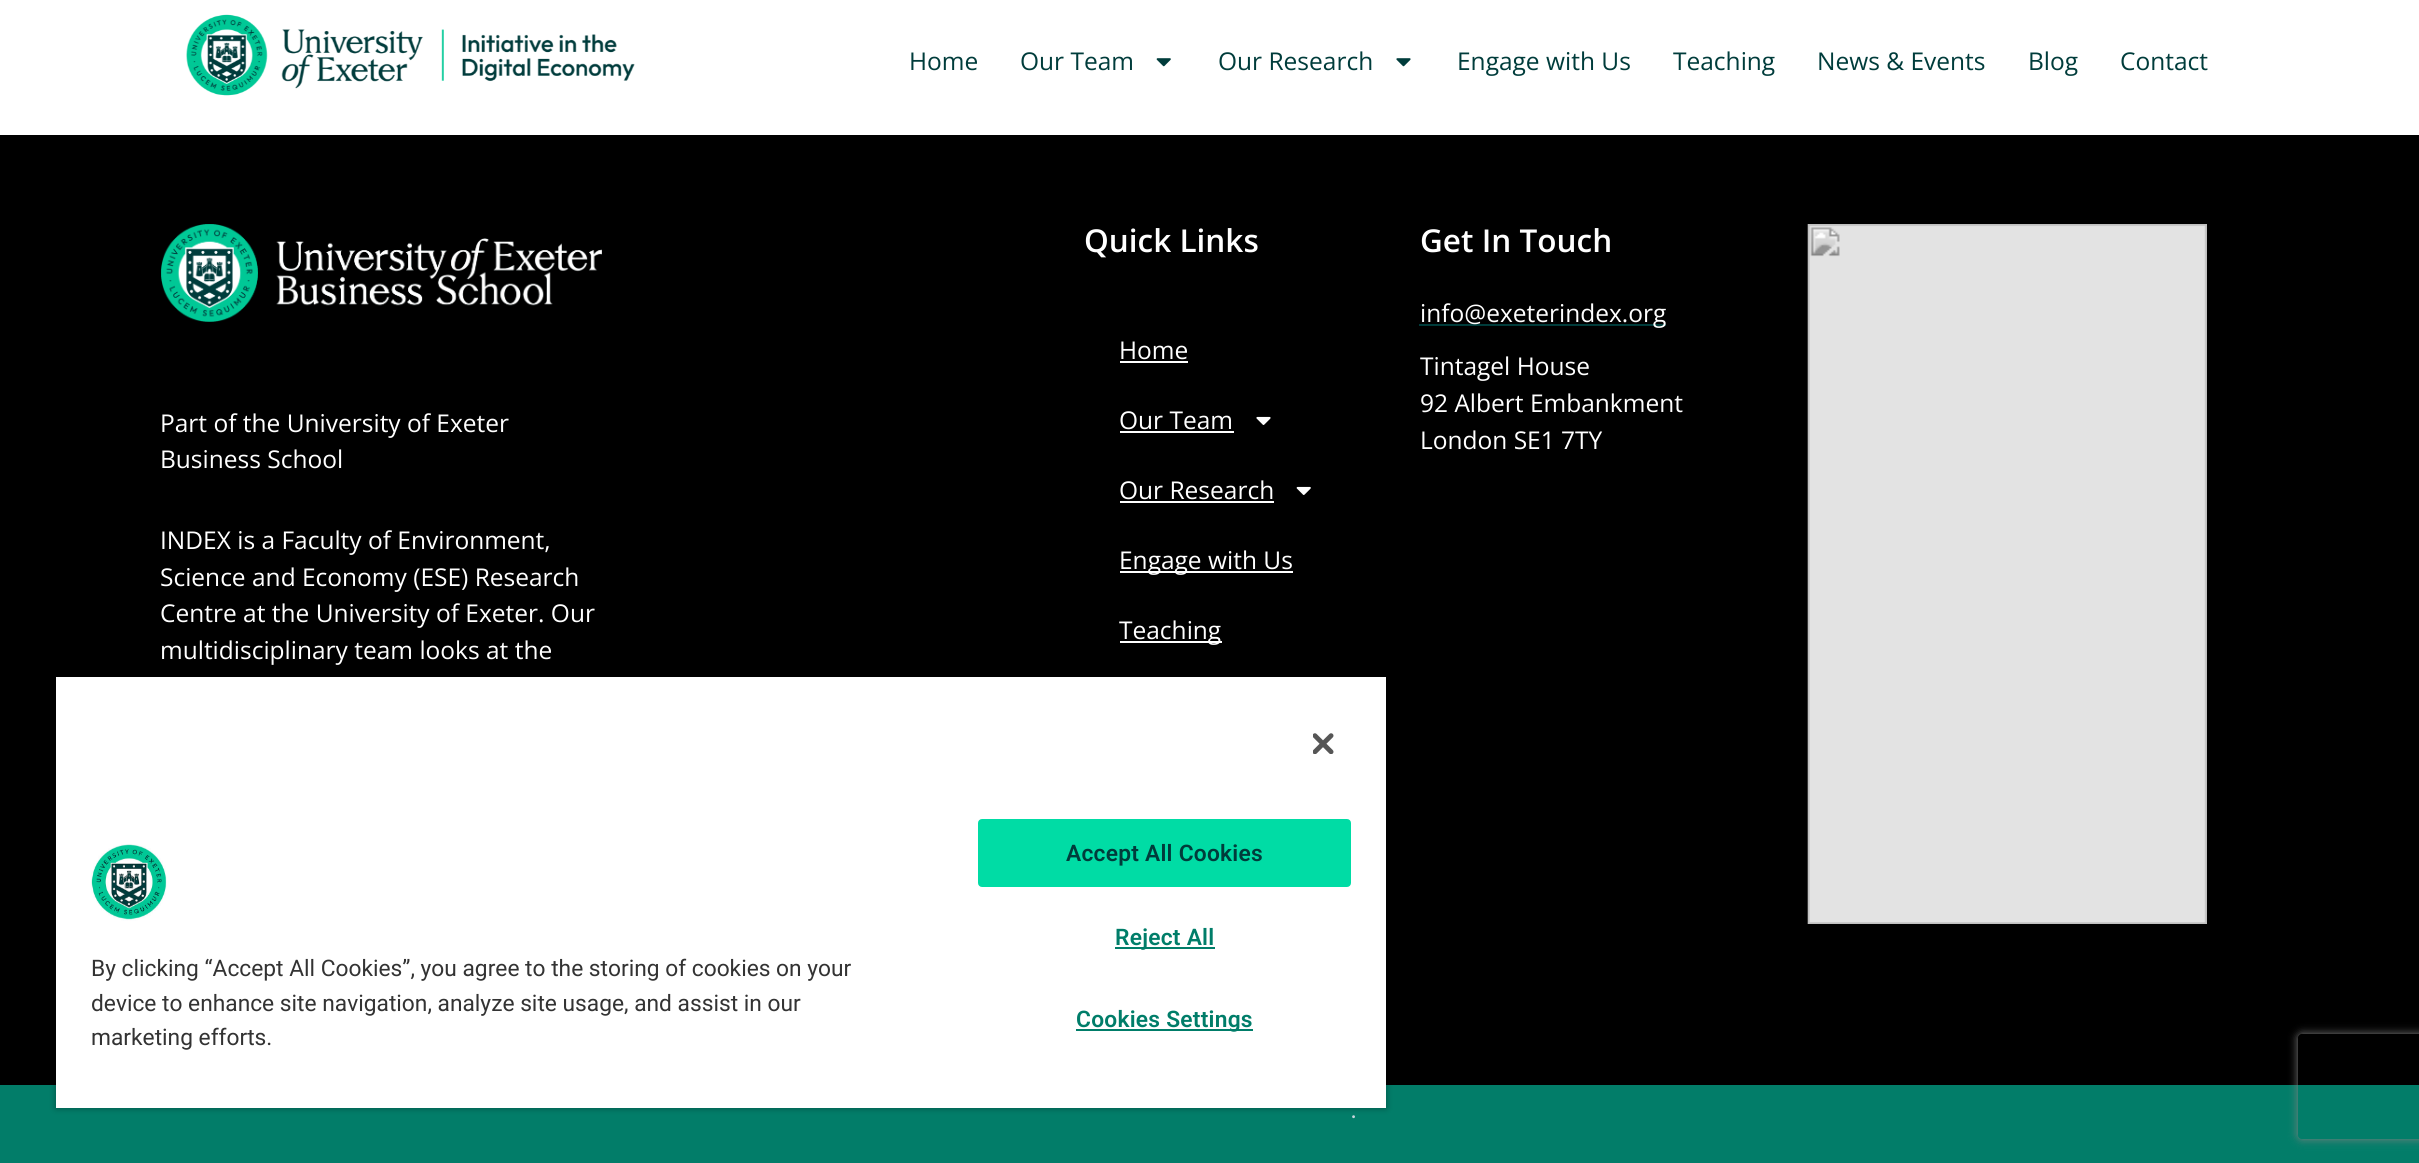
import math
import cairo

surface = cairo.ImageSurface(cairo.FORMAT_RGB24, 2419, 1163)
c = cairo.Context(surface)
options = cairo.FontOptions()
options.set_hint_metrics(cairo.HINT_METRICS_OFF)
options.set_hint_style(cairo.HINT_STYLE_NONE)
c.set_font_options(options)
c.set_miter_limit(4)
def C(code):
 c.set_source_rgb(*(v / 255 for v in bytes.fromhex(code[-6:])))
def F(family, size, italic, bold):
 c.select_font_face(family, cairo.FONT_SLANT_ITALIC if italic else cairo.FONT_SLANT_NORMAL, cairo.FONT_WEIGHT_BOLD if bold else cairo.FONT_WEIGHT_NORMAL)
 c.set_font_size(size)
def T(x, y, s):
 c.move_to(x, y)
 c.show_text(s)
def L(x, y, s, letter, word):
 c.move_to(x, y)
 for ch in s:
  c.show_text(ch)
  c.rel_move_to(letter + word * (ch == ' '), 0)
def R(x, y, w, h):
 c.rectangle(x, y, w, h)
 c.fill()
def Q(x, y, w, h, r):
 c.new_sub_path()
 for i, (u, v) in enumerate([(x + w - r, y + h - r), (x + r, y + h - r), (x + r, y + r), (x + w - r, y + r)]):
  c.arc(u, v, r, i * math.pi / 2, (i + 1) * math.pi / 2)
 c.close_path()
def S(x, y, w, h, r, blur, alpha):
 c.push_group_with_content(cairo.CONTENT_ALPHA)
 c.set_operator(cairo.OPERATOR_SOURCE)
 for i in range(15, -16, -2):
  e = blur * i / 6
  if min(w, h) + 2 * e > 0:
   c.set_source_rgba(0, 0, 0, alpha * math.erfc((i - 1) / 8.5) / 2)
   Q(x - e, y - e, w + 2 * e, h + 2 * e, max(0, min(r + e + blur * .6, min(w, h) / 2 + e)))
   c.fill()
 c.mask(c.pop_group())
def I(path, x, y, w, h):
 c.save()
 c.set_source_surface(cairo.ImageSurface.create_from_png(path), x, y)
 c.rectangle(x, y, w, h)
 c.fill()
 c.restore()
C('ffffff')
c.paint()
I('1.png',186,14,449,82)
F('Open Sans',24.5,0,0)
C('003c3b')
T(909,70,'Home')
T(1020,70,'Our Team')
I('2.png',1156,58,15,9)
T(1218,70,'Our Research')
I('3.png',1396,58,15,9)
T(1457,70,'Engage with Us')
T(1673,70,'Teaching')
T(1817,70,'News & Events')
T(2028,70,'Blog')
T(2120,70,'Contact')
C('000000')
R(0,135,2419,950)
F('Open Sans SemiBold',31.5,0,0)
C('ffffff')
T(1084,252,'Quick Links')
F('Open Sans',24.5,0,0)
T(1119,359,'Home')
R(1120,361,68,2)
T(1119,429,'Our Team')
R(1120,431,114,2)
I('4.png',1256,416,15,9)
T(1119,499,'Our Research')
R(1120,501,154,2)
I('5.png',1296,486,15,9)
R(1120,571,173,2)
T(1119,569,'Engage with Us')
R(1120,641,102,2)
T(1119,639,'Teaching')
F('Open Sans SemiBold',31.5,0,0)
T(1420,252,'Get In Touch')
C('003c3b')
R(1419,324,247,2)
F('Open Sans',24.5,0,0)
C('ffffff')
T(1420,322,'info@exeterindex.org')
T(1420,375,'Tintagel House')
T(1420,412,'92 Albert Embankment')
T(1420,449,'London SE1 7TY')
I('6.png',1807,224,400,700)
I('7.png',161,224,441,98)
T(160,432,'Part of the University of Exeter')
T(160,468,'Business School')
T(160,549,'INDEX is a Faculty of Environment,')
T(160,586,'Science and Economy (ESE) Research')
T(160,622,'Centre at the University of Exeter. Our')
T(160,659,'multidisciplinary team looks at the')
C('027d69')
R(0,1085,2419,78)
F('Poppins Light',28,0,0)
C('c8d5dc')
T(1351,1118,'.')
c.save()
c.set_fill_rule(cairo.FILL_RULE_EVEN_ODD)
c.new_path()
c.move_to(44,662)
c.line_to(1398,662)
c.line_to(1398,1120)
c.line_to(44,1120)
c.close_path()
c.move_to(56,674)
c.line_to(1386,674)
c.line_to(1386,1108)
c.line_to(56,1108)
c.close_path()
c.clip()
C('000000')
S(56,674,1330,434,0,3.5,.35)
c.restore()
c.save()
c.rectangle(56,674,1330,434)
c.clip()
C('000000')
S(56,677,1330,431,0,3.5,.2)
c.restore()
C('ffffff')
R(56,677,1330,431)
I('8.png',1313,733,21,21)
I('9.png',91,844,76,77)
F('Roboto',22.75,0,0)
C('333333')
T(91,976,'By clicking “Accept All Cookies”, you agree to the storing of cookies on your')
T(91,1011,'device to enhance site navigation, analyze site usage, and assist in our')
T(91,1045,'marketing efforts.')
C('00dca5')
Q(979,820,371,66,3)
c.fill_preserve()
c.stroke()
F('Roboto SemiBold',22.75,0,0)
C('003c3b')
L(1066,861,'Accept All Cookies',.25,0)
C('007d69')
R(1115,947,100,2)
L(1115,945,'Reject All',.25,0)
R(1076,1029,177,2)
L(1076,1027,'Cookies Settings',.25,0)
c.save()
c.set_fill_rule(cairo.FILL_RULE_EVEN_ODD)
c.new_path()
c.move_to(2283,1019)
c.line_to(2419,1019)
c.line_to(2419,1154)
c.line_to(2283,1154)
c.close_path()
c.move_to(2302,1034)
c.line_to(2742,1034)
c.curve_to(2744,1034,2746,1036,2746,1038)
c.line_to(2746,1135)
c.curve_to(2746,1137,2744,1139,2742,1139)
c.line_to(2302,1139)
c.curve_to(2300,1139,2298,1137,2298,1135)
c.line_to(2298,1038)
c.curve_to(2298,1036,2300,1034,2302,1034)
c.close_path()
c.clip()
C('808080')
S(2298,1034,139,105,4,4.5,1)
c.restore()
surface.write_to_png('o.png')
